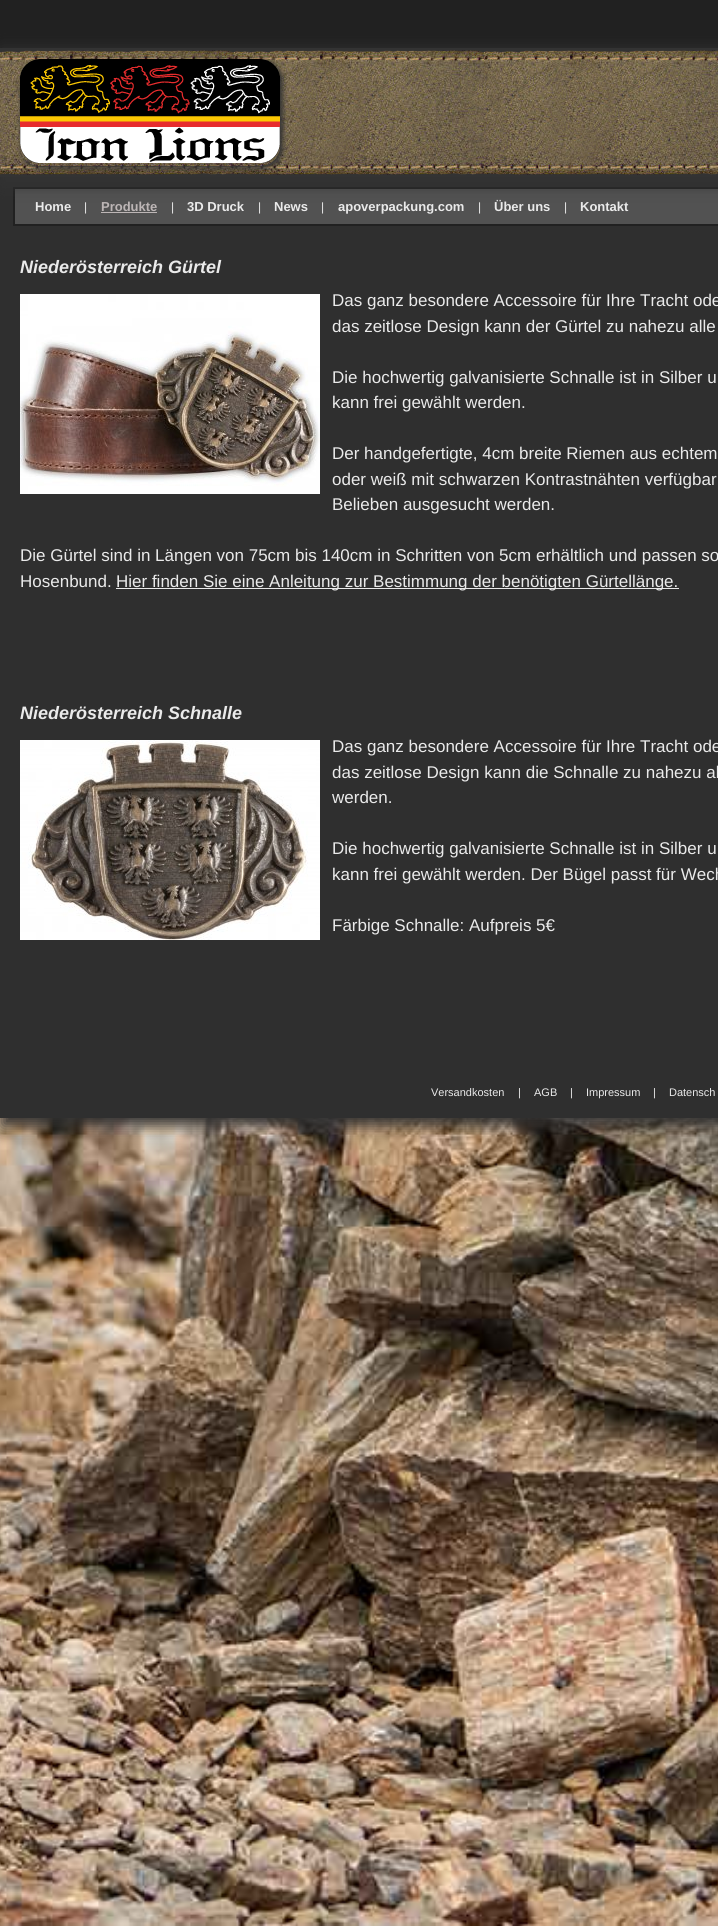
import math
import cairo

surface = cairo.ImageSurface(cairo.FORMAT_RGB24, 718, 1926)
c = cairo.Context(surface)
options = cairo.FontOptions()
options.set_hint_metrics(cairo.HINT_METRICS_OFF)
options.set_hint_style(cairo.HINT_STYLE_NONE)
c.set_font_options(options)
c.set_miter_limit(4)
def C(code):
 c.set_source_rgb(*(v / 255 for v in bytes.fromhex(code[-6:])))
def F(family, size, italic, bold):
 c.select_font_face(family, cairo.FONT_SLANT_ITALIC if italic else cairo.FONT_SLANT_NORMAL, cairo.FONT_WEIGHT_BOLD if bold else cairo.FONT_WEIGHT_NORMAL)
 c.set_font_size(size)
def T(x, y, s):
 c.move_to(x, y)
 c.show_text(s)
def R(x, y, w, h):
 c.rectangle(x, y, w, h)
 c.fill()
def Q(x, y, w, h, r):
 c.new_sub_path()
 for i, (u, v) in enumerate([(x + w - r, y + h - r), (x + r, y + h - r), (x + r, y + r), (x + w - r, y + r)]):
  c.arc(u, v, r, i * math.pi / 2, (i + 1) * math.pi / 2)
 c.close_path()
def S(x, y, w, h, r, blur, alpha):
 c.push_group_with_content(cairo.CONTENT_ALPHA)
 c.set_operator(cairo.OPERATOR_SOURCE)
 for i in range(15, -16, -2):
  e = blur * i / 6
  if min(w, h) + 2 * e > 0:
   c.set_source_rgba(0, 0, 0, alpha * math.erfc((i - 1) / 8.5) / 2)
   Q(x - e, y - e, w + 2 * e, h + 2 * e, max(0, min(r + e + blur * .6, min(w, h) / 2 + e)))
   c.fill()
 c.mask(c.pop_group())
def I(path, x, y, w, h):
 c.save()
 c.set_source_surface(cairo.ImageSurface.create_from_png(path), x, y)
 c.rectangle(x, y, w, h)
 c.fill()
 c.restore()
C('ffffff')
c.paint()
I('1.png',0,1118,718,808)
C('212121')
R(0,0,718,48)
C('333333')
S(2,159,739,967,0,7.5,1)
C('2f2f2f')
R(0,177,718,941)
C('525252')
c.rectangle(14,188,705,37)
c.fill_preserve()
C('212121')
c.stroke()
C('333333')
S(2,50,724,135,0,7.5,1)
C('333333')
R(0,48,718,129)
I('2.png',0,50,718,125)
c.save()
c.set_fill_rule(cairo.FILL_RULE_EVEN_ODD)
c.new_path()
c.move_to(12,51)
c.line_to(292,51)
c.line_to(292,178)
c.line_to(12,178)
c.close_path()
c.move_to(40,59)
c.line_to(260,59)
c.curve_to(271,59,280,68,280,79)
c.line_to(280,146)
c.curve_to(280,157,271,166,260,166)
c.line_to(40,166)
c.curve_to(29,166,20,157,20,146)
c.line_to(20,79)
c.curve_to(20,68,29,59,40,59)
c.close_path()
c.clip()
C('333333')
S(21,60,262,109,21,2.5,1)
c.restore()
I('3.png',20,59,260,104)
F('Liberation Sans',13,0,1)
C('eaeaea')
T(35,211,'Home')
F('Liberation Sans',12,0,0)
T(84,211,'|')
F('Liberation Sans',13,0,1)
C('bdb6b6')
T(101,211,'Produkte')
R(101,212,56,1)
F('Liberation Sans',12,0,0)
C('eaeaea')
T(171,211,'|')
F('Liberation Sans',13,0,1)
T(187,211,'3D Druck')
F('Liberation Sans',12,0,0)
T(258,211,'|')
F('Liberation Sans',13,0,1)
T(274,211,'News')
F('Liberation Sans',12,0,0)
T(321,211,'|')
F('Liberation Sans',13,0,1)
T(338,211,'apoverpackung.com')
F('Liberation Sans',12,0,0)
T(478,211,'|')
F('Liberation Sans',13,0,1)
T(494,211,'Über uns')
F('Liberation Sans',12,0,0)
T(564,211,'|')
F('Liberation Sans',13,0,1)
T(580,211,'Kontakt')
F('Liberation Sans',18,1,1)
T(20,273,'Niederösterreich Gürtel')
I('4.png',20,294,300,200)
F('Liberation Sans',17,0,0)
T(332,306,'Das ganz besondere Accessoire für Ihre Tracht ode')
T(332,332,'das zeitlose Design kann der Gürtel zu nahezu alle')
T(332,383,'Die hochwertig galvanisierte Schnalle ist in Silber u')
T(332,408,'kann frei gewählt werden.')
T(332,459,'Der handgefertigte, 4cm breite Riemen aus echtem')
T(332,485,'oder weiß mit schwarzen Kontrastnähten verfügbar')
T(332,510,'Belieben ausgesucht werden.')
T(20,561,'Die Gürtel sind in Längen von 75cm bis 140cm in Schritten von 5cm erhältlich und passen so')
T(20,587,'Hosenbund.')
R(116,588,563,1)
T(116,587,'Hier finden Sie eine Anleitung zur Bestimmung der benötigten Gürtellänge.')
F('Liberation Sans',18,1,1)
T(20,719,'Niederösterreich Schnalle')
I('5.png',20,740,300,200)
F('Liberation Sans',17,0,0)
T(332,752,'Das ganz besondere Accessoire für Ihre Tracht ode')
T(332,778,'das zeitlose Design kann die Schnalle zu nahezu al')
T(332,803,'werden.')
T(332,854,'Die hochwertig galvanisierte Schnalle ist in Silber u')
T(332,880,'kann frei gewählt werden. Der Bügel passt für Wech')
T(332,931,'Färbige Schnalle: Aufpreis 5€')
F('Liberation Sans',11,0,0)
T(431,1096,'Versandkosten')
T(518,1096,'|')
T(534,1096,'AGB')
T(570,1096,'|')
T(586,1096,'Impressum')
T(653,1096,'|')
T(669,1096,'Datensch')
surface.write_to_png('o.png')
